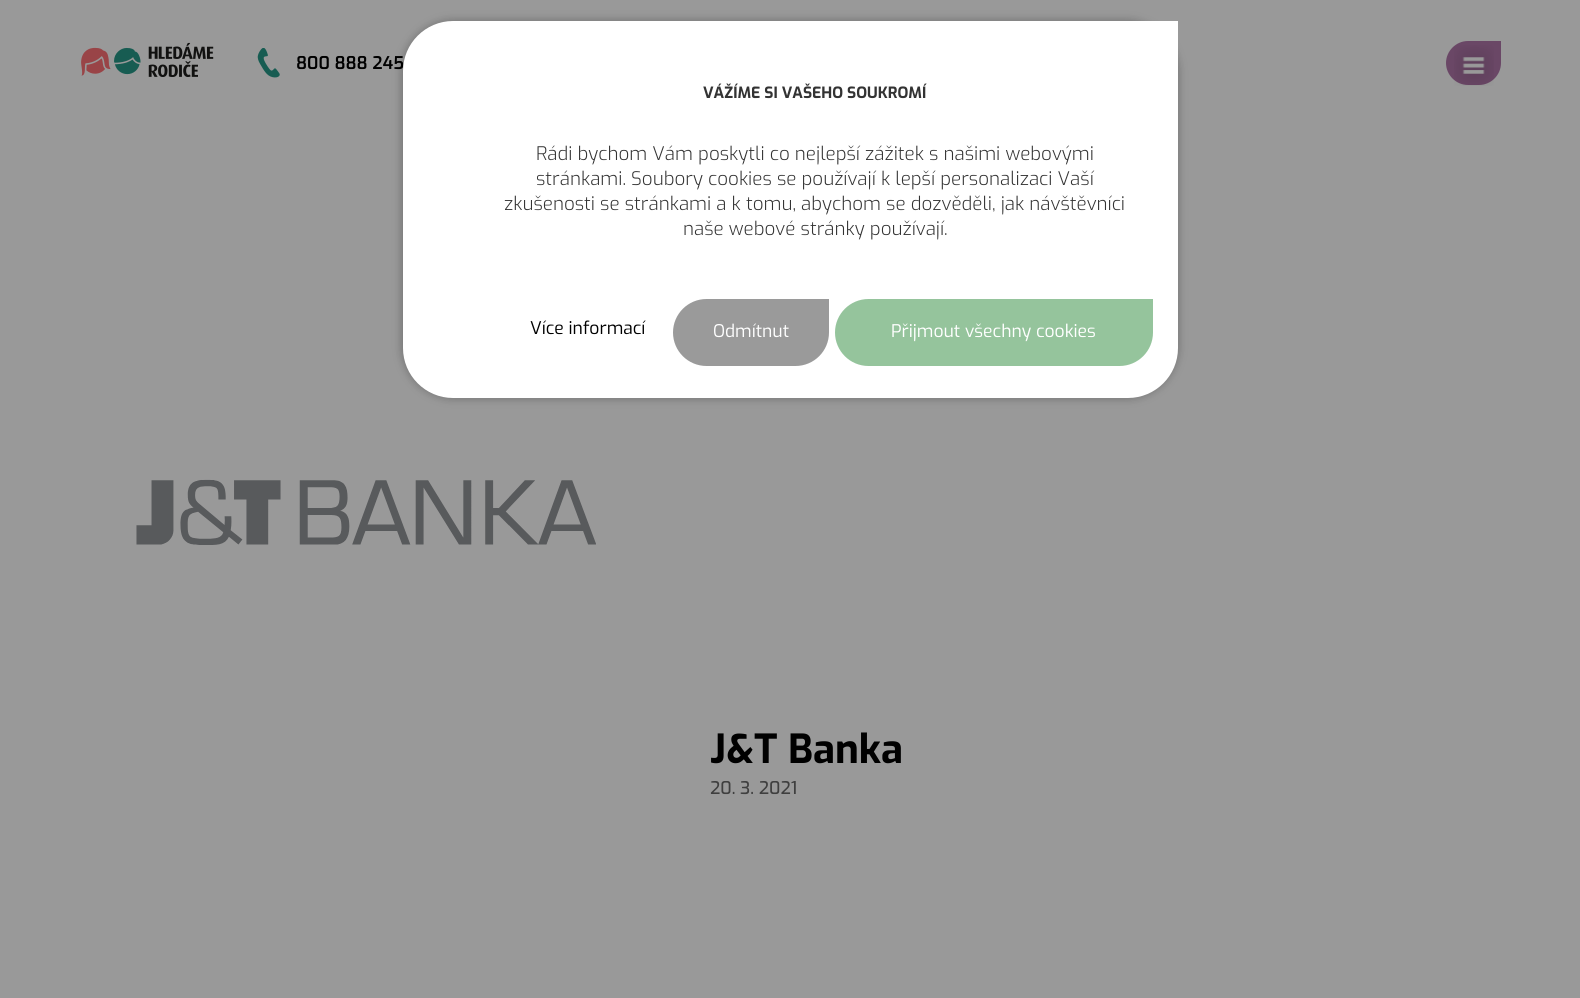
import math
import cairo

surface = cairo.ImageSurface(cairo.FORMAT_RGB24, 1580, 998)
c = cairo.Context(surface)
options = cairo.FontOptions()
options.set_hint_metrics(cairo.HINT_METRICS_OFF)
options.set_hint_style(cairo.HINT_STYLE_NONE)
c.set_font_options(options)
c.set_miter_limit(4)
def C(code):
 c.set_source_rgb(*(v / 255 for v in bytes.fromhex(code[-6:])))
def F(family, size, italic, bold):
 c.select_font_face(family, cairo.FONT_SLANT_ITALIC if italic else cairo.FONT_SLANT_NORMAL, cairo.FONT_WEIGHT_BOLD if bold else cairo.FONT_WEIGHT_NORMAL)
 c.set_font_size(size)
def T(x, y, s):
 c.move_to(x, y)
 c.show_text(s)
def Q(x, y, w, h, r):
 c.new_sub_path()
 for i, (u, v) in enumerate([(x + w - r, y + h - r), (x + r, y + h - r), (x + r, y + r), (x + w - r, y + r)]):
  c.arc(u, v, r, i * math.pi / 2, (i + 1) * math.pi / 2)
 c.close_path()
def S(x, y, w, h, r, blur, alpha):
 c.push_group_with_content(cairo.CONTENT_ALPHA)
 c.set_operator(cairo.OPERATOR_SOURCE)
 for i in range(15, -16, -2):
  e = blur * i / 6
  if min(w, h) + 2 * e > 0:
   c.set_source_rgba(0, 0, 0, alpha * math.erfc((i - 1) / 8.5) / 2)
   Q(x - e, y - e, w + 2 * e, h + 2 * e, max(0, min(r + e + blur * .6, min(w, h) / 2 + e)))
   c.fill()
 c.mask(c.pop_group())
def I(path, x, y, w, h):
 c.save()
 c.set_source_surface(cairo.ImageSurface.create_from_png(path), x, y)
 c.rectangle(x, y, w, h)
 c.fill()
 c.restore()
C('999999')
c.paint()
I('1.png',81,42,133,35)
I('2.png',257,48,23,30)
F('Exo SemiBold',17.5,0,0)
C('000000')
T(296,69,'800 888 245')
C('6a4766')
c.new_path()
c.move_to(1468,41)
c.line_to(1501,41)
c.line_to(1501,63)
c.curve_to(1501,75,1491,85,1479,85)
c.line_to(1468,85)
c.curve_to(1456,85,1446,75,1446,63)
c.curve_to(1446,51,1456,41,1468,41)
c.close_path()
c.fill()
I('3.png',1454,45,40,41)
C('000000')
S(400,19,780,381,53,4,.2)
C('ffffff')
c.new_path()
c.move_to(453,21)
c.line_to(1178,21)
c.line_to(1178,348)
c.curve_to(1178,375.5,1155.5,398,1128,398)
c.line_to(453,398)
c.curve_to(425.5,398,403,375.5,403,348)
c.line_to(403,71)
c.curve_to(403,43.5,425.5,21,453,21)
c.close_path()
c.fill()
F('Exo',15.5,0,1)
C('333333')
T(703,98,'VÁŽÍME SI VAŠEHO SOUKROMÍ')
F('Exo Light',18.75,0,0)
T(536,160,'Rádi bychom Vám poskytli co nejlepší zážitek s našimi webovými')
T(536,185,'stránkami. Soubory cookies se používají k lepší personalizaci Vaší')
T(504,210,'zkušenosti se stránkami a k tomu, abychom se dozvěděli, jak návštěvníci')
T(683,235,'naše webové stránky používají.')
F('Exo',17.5,0,0)
C('000000')
T(530,334,'Více informací')
C('9a9a9a')
c.new_path()
c.move_to(706.5,299)
c.line_to(829,299)
c.line_to(829,332.5)
c.curve_to(829,351,814,366,795.5,366)
c.line_to(706.5,366)
c.curve_to(688,366,673,351,673,332.5)
c.curve_to(673,314,688,299,706.5,299)
c.close_path()
c.fill()
C('ffffff')
T(713,337,'Odmítnut')
C('95c49c')
c.new_path()
c.move_to(868.5,299)
c.line_to(1153,299)
c.line_to(1153,332.5)
c.curve_to(1153,351,1138,366,1119.5,366)
c.line_to(868.5,366)
c.curve_to(850,366,835,351,835,332.5)
c.curve_to(835,314,850,299,868.5,299)
c.close_path()
c.fill()
C('ffffff')
T(891,337,'Přijmout všechny cookies')
I('4.png',136,479,460,66)
F('Exo',40,0,1)
C('000000')
T(710,763,'J&T Banka')
F('Exo Medium',17.5,0,0)
C('3f3f3f')
T(710,794,'20. 3. 2021')
surface.write_to_png('o.png')
